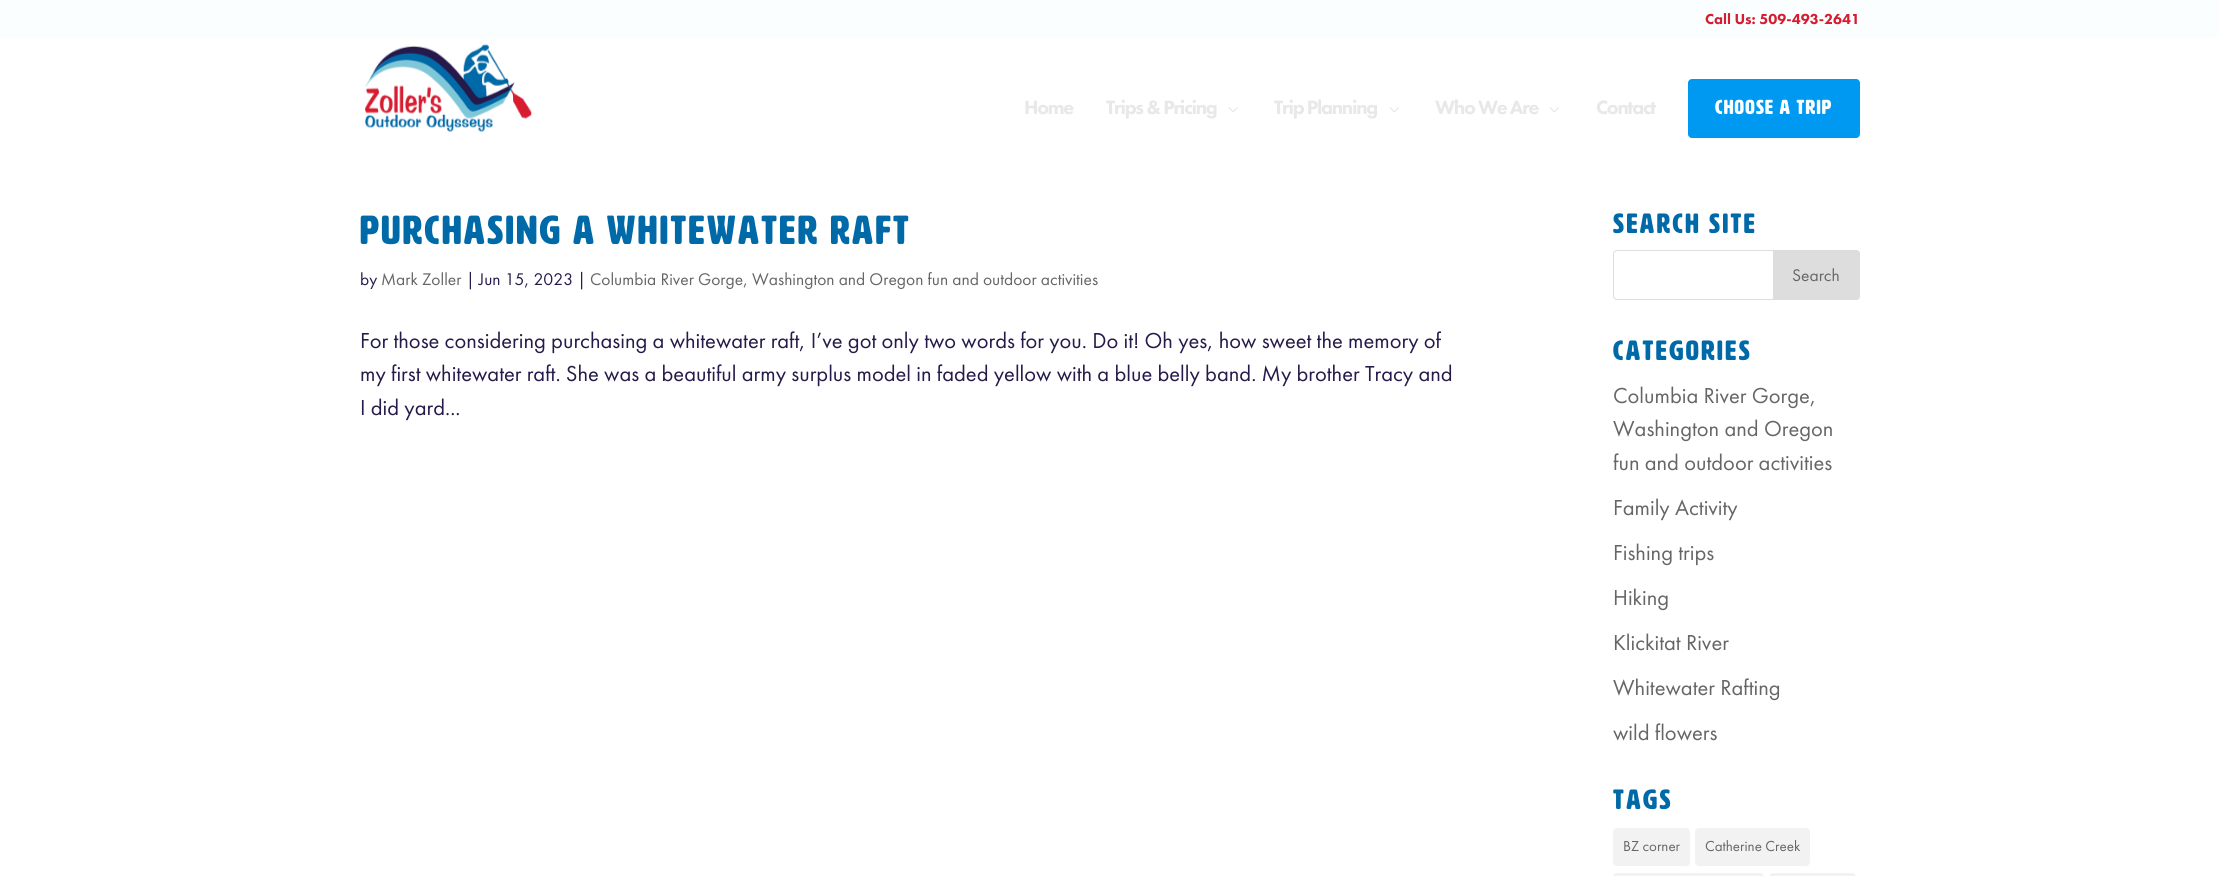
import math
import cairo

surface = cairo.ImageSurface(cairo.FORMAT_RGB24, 2219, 876)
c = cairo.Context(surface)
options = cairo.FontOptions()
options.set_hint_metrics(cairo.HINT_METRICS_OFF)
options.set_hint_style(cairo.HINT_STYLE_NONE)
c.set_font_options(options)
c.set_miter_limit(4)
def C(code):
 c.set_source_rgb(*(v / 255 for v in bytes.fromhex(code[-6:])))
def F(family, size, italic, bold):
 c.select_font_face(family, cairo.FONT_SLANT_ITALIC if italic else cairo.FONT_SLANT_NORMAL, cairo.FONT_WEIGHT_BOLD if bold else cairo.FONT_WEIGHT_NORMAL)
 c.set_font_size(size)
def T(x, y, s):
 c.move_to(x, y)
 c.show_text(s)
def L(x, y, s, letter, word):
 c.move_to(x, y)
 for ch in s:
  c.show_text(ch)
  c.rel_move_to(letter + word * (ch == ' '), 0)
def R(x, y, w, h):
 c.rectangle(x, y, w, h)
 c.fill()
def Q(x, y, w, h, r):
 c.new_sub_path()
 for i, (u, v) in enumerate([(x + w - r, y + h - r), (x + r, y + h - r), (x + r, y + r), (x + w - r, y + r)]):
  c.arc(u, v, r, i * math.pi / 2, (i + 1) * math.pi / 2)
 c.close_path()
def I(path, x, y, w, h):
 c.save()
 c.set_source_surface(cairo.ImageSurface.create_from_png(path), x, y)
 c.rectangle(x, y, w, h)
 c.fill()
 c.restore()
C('ffffff')
c.paint()
C('fbfeff')
R(0,0,2219,38)
F('Futura PT Black',15,0,0)
C('d71c30')
T(1705,24,'Call Us: 509-493-2641')
I('1.png',365,44,167,88)
F('Futura PT Black',20,0,0)
C('e8e8e8')
L(1024,114,'Home',-1.25,0)
L(1106,114,'Trips & Pricing',-1.25,0)
I('2.png',1228,107,10,6)
L(1274,114,'Trip Planning',-1.25,0)
I('3.png',1390,107,9,6)
L(1435,114,'Who We Are',-1.25,0)
I('3.png',1550,107,9,6)
L(1596,114,'Contact',-1.25,0)
C('0099f2')
Q(1688,79,172,59,4)
c.fill()
F('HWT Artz',20,0,1)
C('fafeff')
L(1715,114,'CHOOSE A TRIP',1.25,0)
F('HWT Artz',40,0,1)
C('0069a7')
L(360,244,'Purchasing a Whitewater Raft',2.5,0)
F('Futura PT',17.5,0,0)
C('261a4a')
T(360,285,'by')
C('666666')
T(381,285,'Mark Zoller')
C('261a4a')
T(466,285,'| Jun 15, 2023 |')
C('666666')
T(590,285,'Columbia River Gorge, Washington and Oregon fun and outdoor activities')
F('Futura PT',22.5,0,0)
C('261a4a')
T(360,348,'For those considering purchasing a whitewater raft, I’ve got only two words for you. Do it! Oh yes, how sweet the memory of')
T(360,381,'my first whitewater raft. She was a beautiful army surplus model in faded yellow with a blue belly band. My brother Tracy and')
T(360,415,'I did yard...')
F('HWT Artz',27.5,0,1)
C('0069a7')
L(1613,233,'Search Site',2.5,0)
Q(1613.5,250.5,246,49,3.5)
C('dddddd')
c.set_line_width(1)
c.stroke()
c.new_path()
c.move_to(1773.5,250.5)
c.line_to(1856,250.5)
c.curve_to(1858,250.5,1859.5,252,1859.5,254)
c.line_to(1859.5,296)
c.curve_to(1859.5,298,1858,299.5,1856,299.5)
c.line_to(1773.5,299.5)
c.close_path()
c.fill_preserve()
c.stroke()
F('Futura PT',17.5,0,0)
C('666666')
T(1792,281,'Search')
F('HWT Artz',27.5,0,1)
C('0069a7')
L(1613,360,'Categories',2.5,0)
F('Futura PT',22.5,0,0)
C('666666')
T(1613,403,'Columbia River Gorge,')
T(1613,436,'Washington and Oregon')
T(1613,470,'fun and outdoor activities')
T(1613,515,'Family Activity')
T(1613,560,'Fishing trips')
T(1613,605,'Hiking')
T(1613,650,'Klickitat River')
T(1613,695,'Whitewater Rafting')
T(1613,740,'wild flowers')
F('HWT Artz',27.5,0,1)
C('0069a7')
L(1613,809,'Tags',2.5,0)
C('f2f2f2')
Q(1613,828,77,38,4)
c.fill()
F('Futura PT',15,0,0)
C('666666')
T(1623,851,'BZ corner')
C('f2f2f2')
Q(1695,828,115,38,4)
c.fill()
C('666666')
T(1705,851,'Catherine Creek')
C('f2f2f2')
Q(1613,873,151,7,4)
c.fill()
Q(1769,873,87,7,4)
c.fill()
surface.write_to_png('o.png')
